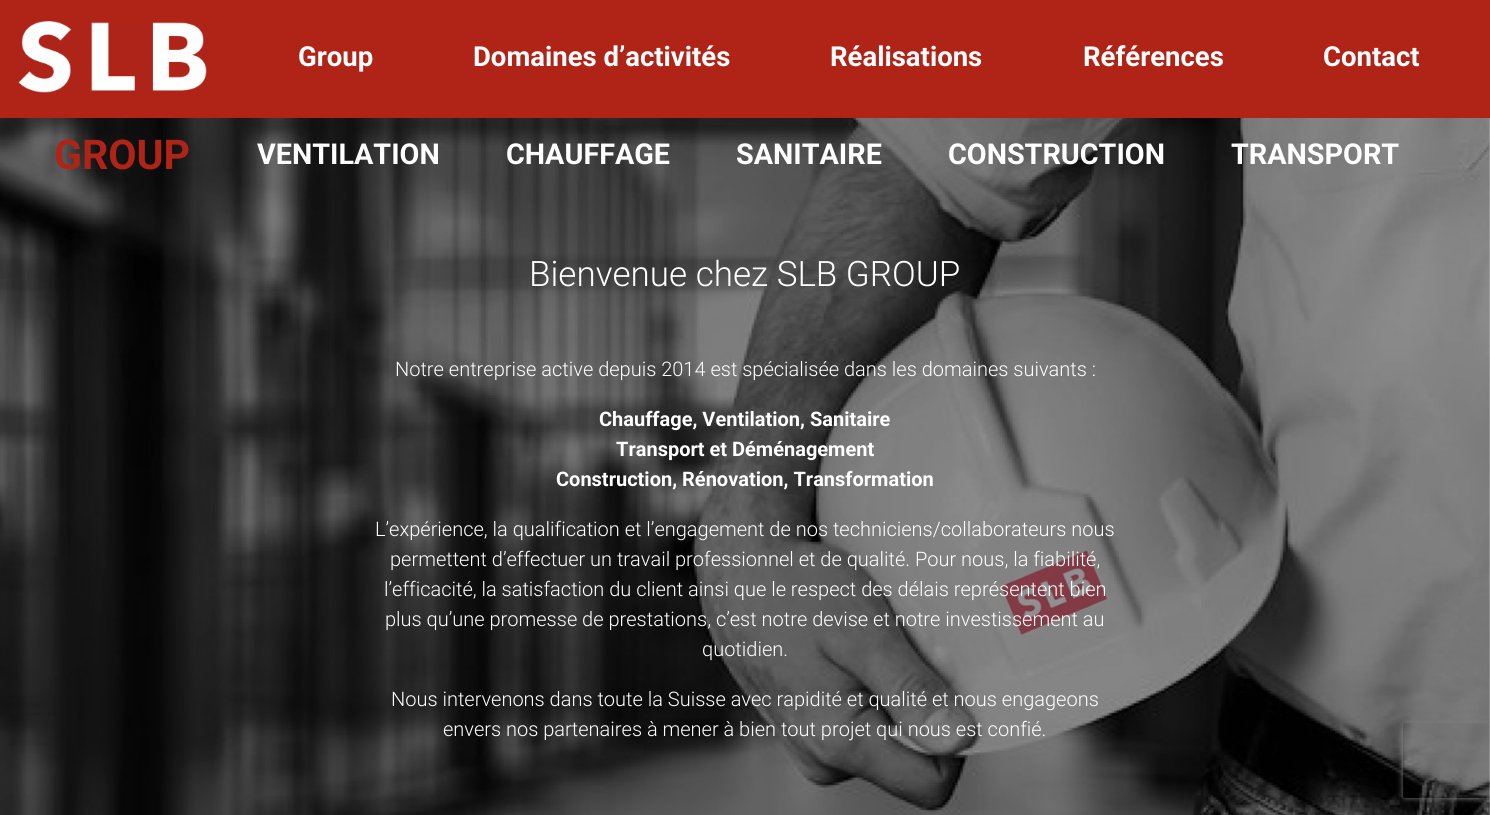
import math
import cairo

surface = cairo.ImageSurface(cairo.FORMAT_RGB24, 1490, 815)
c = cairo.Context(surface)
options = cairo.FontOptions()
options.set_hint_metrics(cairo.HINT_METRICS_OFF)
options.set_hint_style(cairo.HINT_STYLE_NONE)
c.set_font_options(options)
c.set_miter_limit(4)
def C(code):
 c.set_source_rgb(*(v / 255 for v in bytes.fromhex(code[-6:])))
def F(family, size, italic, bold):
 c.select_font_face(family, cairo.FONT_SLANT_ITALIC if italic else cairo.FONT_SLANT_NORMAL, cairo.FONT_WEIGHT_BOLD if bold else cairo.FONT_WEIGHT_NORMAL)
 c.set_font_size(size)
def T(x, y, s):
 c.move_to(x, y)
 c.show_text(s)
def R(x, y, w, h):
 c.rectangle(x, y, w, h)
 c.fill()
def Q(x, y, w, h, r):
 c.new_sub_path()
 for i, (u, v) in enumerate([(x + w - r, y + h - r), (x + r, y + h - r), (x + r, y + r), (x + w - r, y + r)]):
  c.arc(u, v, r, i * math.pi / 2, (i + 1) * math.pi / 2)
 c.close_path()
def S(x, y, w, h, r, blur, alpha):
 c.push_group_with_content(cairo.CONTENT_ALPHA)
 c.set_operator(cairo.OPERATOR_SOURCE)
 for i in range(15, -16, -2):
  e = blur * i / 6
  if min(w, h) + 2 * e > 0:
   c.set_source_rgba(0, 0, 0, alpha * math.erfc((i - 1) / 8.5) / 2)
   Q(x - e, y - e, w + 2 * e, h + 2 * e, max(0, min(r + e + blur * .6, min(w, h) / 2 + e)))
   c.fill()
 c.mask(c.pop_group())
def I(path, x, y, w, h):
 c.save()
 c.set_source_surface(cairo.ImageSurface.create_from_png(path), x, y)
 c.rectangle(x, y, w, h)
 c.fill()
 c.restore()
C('ffffff')
c.paint()
C('b02418')
R(0,0,1490,118)
I('1.png',18,21,189,72)
F('Roboto',27.5,0,1)
C('ffffff')
T(298,66,'Group')
T(473,66,'Domaines d’activités')
T(830,66,'Réalisations')
T(1083,66,'Références')
T(1323,66,'Contact')
I('2.png',0,118,1490,697)
F('Roboto',41,0,1)
C('b02418')
T(54,169,'GROUP')
F('Roboto',28.75,0,1)
C('ffffff')
T(257,164,'VENTILATION')
T(506,164,'CHAUFFAGE')
T(736,164,'SANITAIRE')
T(948,164,'CONSTRUCTION')
T(1231,164,'TRANSPORT')
F('Roboto Light',35,0,0)
T(529,286,'Bienvenue chez SLB GROUP')
F('Roboto Light',20,0,0)
T(395,376,'Notre entreprise active depuis 2014 est spécialisée dans les domaines suivants :')
F('Roboto',20,0,1)
T(599,426,'Chauffage, Ventilation, Sanitaire')
T(616,456,'Transport et Déménagement')
T(556,486,'Construction, Rénovation, Transformation')
F('Roboto Light',20,0,0)
T(375,536,'L’expérience, la qualification et l’engagement de nos techniciens/collaborateurs nous')
T(390,566,'permettent d’effectuer un travail professionnel et de qualité. Pour nous, la fiabilité,')
T(384,596,'l’efficacité, la satisfaction du client ainsi que le respect des délais représentent bien')
T(385,626,'plus qu’une promesse de prestations, c’est notre devise et notre investissement au')
T(702,656,'quotidien.')
T(391,706,'Nous intervenons dans toute la Suisse avec rapidité et qualité et nous engageons')
T(443,736,'envers nos partenaires à mener à bien tout projet qui nous est confié.')
c.save()
c.set_fill_rule(cairo.FILL_RULE_EVEN_ODD)
c.new_path()
c.move_to(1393,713)
c.line_to(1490,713)
c.line_to(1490,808)
c.line_to(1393,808)
c.close_path()
c.move_to(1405.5,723)
c.line_to(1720.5,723)
c.curve_to(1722,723,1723,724,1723,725.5)
c.line_to(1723,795.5)
c.curve_to(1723,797,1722,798,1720.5,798)
c.line_to(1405.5,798)
c.curve_to(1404,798,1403,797,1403,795.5)
c.line_to(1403,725.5)
c.curve_to(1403,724,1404,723,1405.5,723)
c.close_path()
c.clip()
C('808080')
S(1403,723,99,75,2.5,3,1)
c.restore()
surface.write_to_png('o.png')
